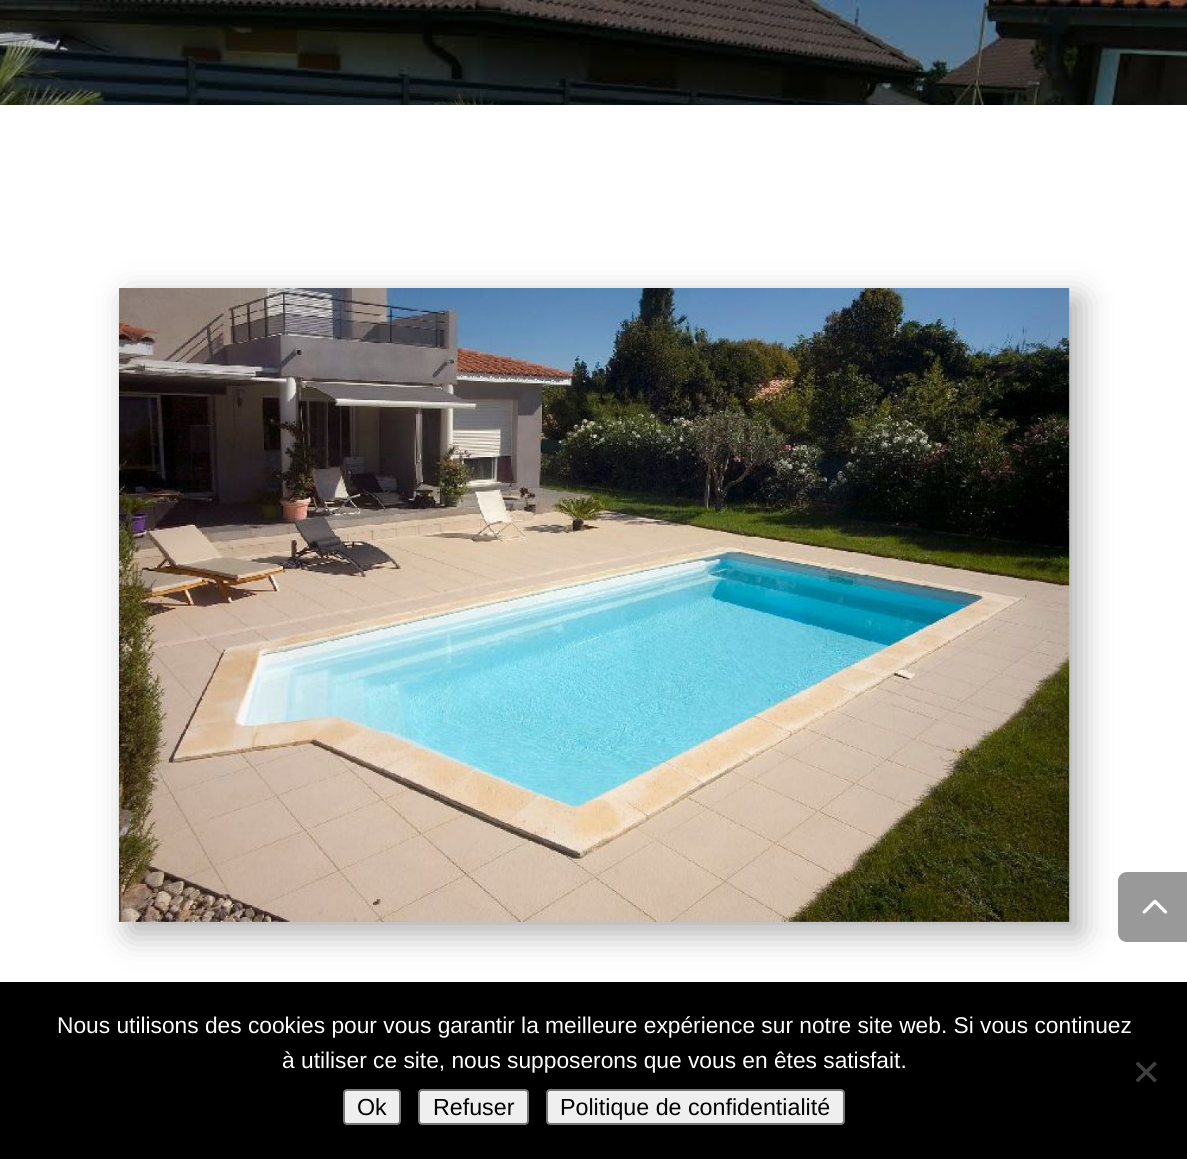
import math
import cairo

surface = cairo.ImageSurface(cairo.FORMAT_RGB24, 1187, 1159)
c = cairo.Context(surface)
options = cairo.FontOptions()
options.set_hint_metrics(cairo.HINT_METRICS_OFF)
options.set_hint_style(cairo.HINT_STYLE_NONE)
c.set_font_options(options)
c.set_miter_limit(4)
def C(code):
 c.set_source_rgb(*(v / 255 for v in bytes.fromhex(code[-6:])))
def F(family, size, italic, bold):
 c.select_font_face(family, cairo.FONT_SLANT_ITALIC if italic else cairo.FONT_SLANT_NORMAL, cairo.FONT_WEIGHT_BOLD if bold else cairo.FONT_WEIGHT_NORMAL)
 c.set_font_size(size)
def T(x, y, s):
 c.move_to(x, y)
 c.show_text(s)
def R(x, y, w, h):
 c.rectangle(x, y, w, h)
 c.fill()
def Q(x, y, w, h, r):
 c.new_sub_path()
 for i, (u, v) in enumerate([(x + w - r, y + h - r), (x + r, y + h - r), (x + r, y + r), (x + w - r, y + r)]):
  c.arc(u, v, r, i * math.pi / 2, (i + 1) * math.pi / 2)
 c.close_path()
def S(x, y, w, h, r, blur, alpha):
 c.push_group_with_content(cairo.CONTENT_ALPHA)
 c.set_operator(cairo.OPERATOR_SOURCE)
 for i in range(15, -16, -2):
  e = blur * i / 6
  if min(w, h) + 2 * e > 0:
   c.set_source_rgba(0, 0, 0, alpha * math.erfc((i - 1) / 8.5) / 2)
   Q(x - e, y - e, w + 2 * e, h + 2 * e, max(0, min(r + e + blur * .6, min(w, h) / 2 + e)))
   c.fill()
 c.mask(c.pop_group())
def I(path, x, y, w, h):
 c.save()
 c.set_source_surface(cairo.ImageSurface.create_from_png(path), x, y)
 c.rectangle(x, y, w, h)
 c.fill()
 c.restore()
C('ffffff')
c.paint()
I('1.png',0,0,1187,105)
C('adadad')
S(130,299,950,634,0,16,1)
I('2.png',119,288,951,634)
C('999999')
c.new_path()
c.move_to(1127,872)
c.line_to(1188,872)
c.line_to(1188,942)
c.line_to(1127,942)
c.curve_to(1122,942,1118,938,1118,933)
c.line_to(1118,881)
c.curve_to(1118,876,1122,872,1127,872)
c.close_path()
c.fill()
I('3.png',1142,899,26,15)
C('000000')
R(0,982,1187,177)
F('Liberation Sans',22.75,0,0)
C('ffffff')
T(57,1033,'Nous utilisons des cookies pour vous garantir la meilleure expérience sur notre site web. Si vous continuez')
T(282,1068,'à utiliser ce site, nous supposerons que vous en êtes satisfait.')
C('404040')
c.new_path()
c.move_to(1154.5,1061.5)
c.line_to(1157,1064)
c.line_to(1138,1082.5)
c.line_to(1135.5,1080)
c.close_path()
c.fill()
c.new_path()
c.move_to(1135.5,1064)
c.line_to(1138,1061.5)
c.line_to(1157,1080)
c.line_to(1154.5,1082.5)
c.close_path()
c.fill()
C('efefef')
Q(344,1090,56,34,3)
c.fill_preserve()
C('767676')
c.stroke()
F('Liberation Sans',23.25,0,0)
C('000000')
T(357,1115,'Ok')
C('efefef')
Q(419,1090,109,34,3)
c.fill_preserve()
C('767676')
c.stroke()
C('000000')
T(433,1115,'Refuser')
C('efefef')
Q(547,1090,297,34,3)
c.fill_preserve()
C('767676')
c.stroke()
C('000000')
T(560,1115,'Politique de confidentialité')
surface.write_to_png('o.png')
